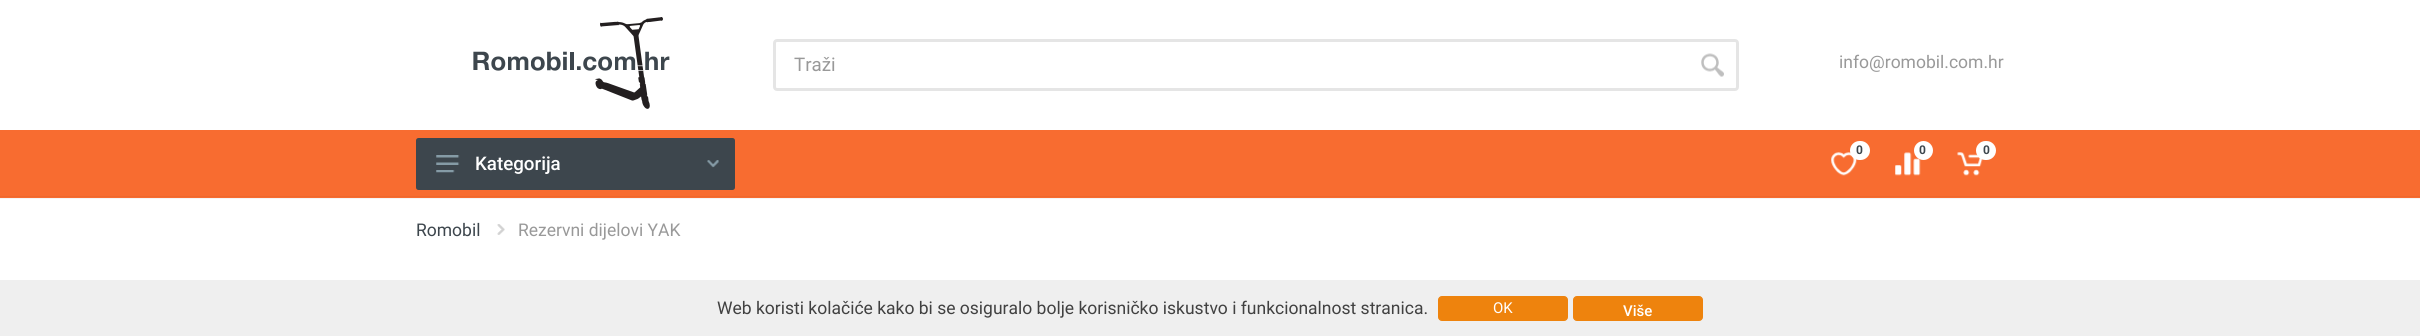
import math
import cairo

surface = cairo.ImageSurface(cairo.FORMAT_RGB24, 2420, 336)
c = cairo.Context(surface)
options = cairo.FontOptions()
options.set_hint_metrics(cairo.HINT_METRICS_OFF)
options.set_hint_style(cairo.HINT_STYLE_NONE)
c.set_font_options(options)
c.set_miter_limit(4)
def C(code):
 c.set_source_rgb(*(v / 255 for v in bytes.fromhex(code[-6:])))
def F(family, size, italic, bold):
 c.select_font_face(family, cairo.FONT_SLANT_ITALIC if italic else cairo.FONT_SLANT_NORMAL, cairo.FONT_WEIGHT_BOLD if bold else cairo.FONT_WEIGHT_NORMAL)
 c.set_font_size(size)
def T(x, y, s):
 c.move_to(x, y)
 c.show_text(s)
def R(x, y, w, h):
 c.rectangle(x, y, w, h)
 c.fill()
def Q(x, y, w, h, r):
 c.new_sub_path()
 for i, (u, v) in enumerate([(x + w - r, y + h - r), (x + r, y + h - r), (x + r, y + r), (x + w - r, y + r)]):
  c.arc(u, v, r, i * math.pi / 2, (i + 1) * math.pi / 2)
 c.close_path()
def I(path, x, y, w, h):
 c.save()
 c.set_source_surface(cairo.ImageSurface.create_from_png(path), x, y)
 c.rectangle(x, y, w, h)
 c.fill()
 c.restore()
C('ffffff')
c.paint()
I('1.png',473,17,197,92)
I('2.png',1701,53,23,24)
Q(774.5,40.5,963,49,2.5)
C('e5e5e5')
c.set_line_width(3)
c.stroke()
F('Roboto',18.75,0,0)
C('999999')
T(794,71,'Traži')
F('Roboto',17.5,0,0)
T(1839,68,'info@romobil.com.hr')
C('f5f5f5')
R(0,198,2420,1)
C('f86c30')
R(0,130,2420,68)
C('ee682e')
R(0,196,2420,1)
I('3.png',1831,152,26,24)
C('ffffff')
Q(1850,141,20,19,9.5)
c.fill()
F('Roboto',12,0,1)
C('3d464d')
T(1856,154,'0')
I('4.png',1895,152,26,24)
C('ffffff')
c.arc(1923.5,150.5,9.5,0,2 * math.pi)
c.fill()
C('3d464d')
T(1919,154,'0')
I('5.png',1957,152,26,24)
C('ffffff')
Q(1976,141,20,19,9.5)
c.fill()
C('3d464d')
T(1983,154,'0')
Q(416,138,319,52,2.5)
c.fill()
I('6.png',436,155,24,18)
F('Roboto Medium',18.75,0,0)
C('ffffff')
T(475,170,'Kategorija')
I('7.png',707,160,12,8)
F('Roboto',17.5,0,0)
C('3d464d')
T(416,236,'Romobil')
I('8.png',497,224,8,11)
C('999999')
T(518,236,'Rezervni dijelovi YAK')
C('efefef')
R(0,280,2420,56)
C('414141')
T(717,314,'Web koristi kolačiće kako bi se osiguralo bolje korisničko iskustvo i funkcionalnost stranica.')
C('ee830d')
Q(1438.5,296.5,129,24,3.5)
c.fill_preserve()
c.set_line_width(1)
c.stroke()
F('Roboto',15,0,0)
C('ffffff')
T(1493,313,'OK')
C('ee830d')
Q(1573.5,296.5,129,24,3.5)
c.fill_preserve()
c.stroke()
F('Roboto Medium',15,0,0)
C('ffffff')
T(1623,316,'Više')
surface.write_to_png('o.png')
